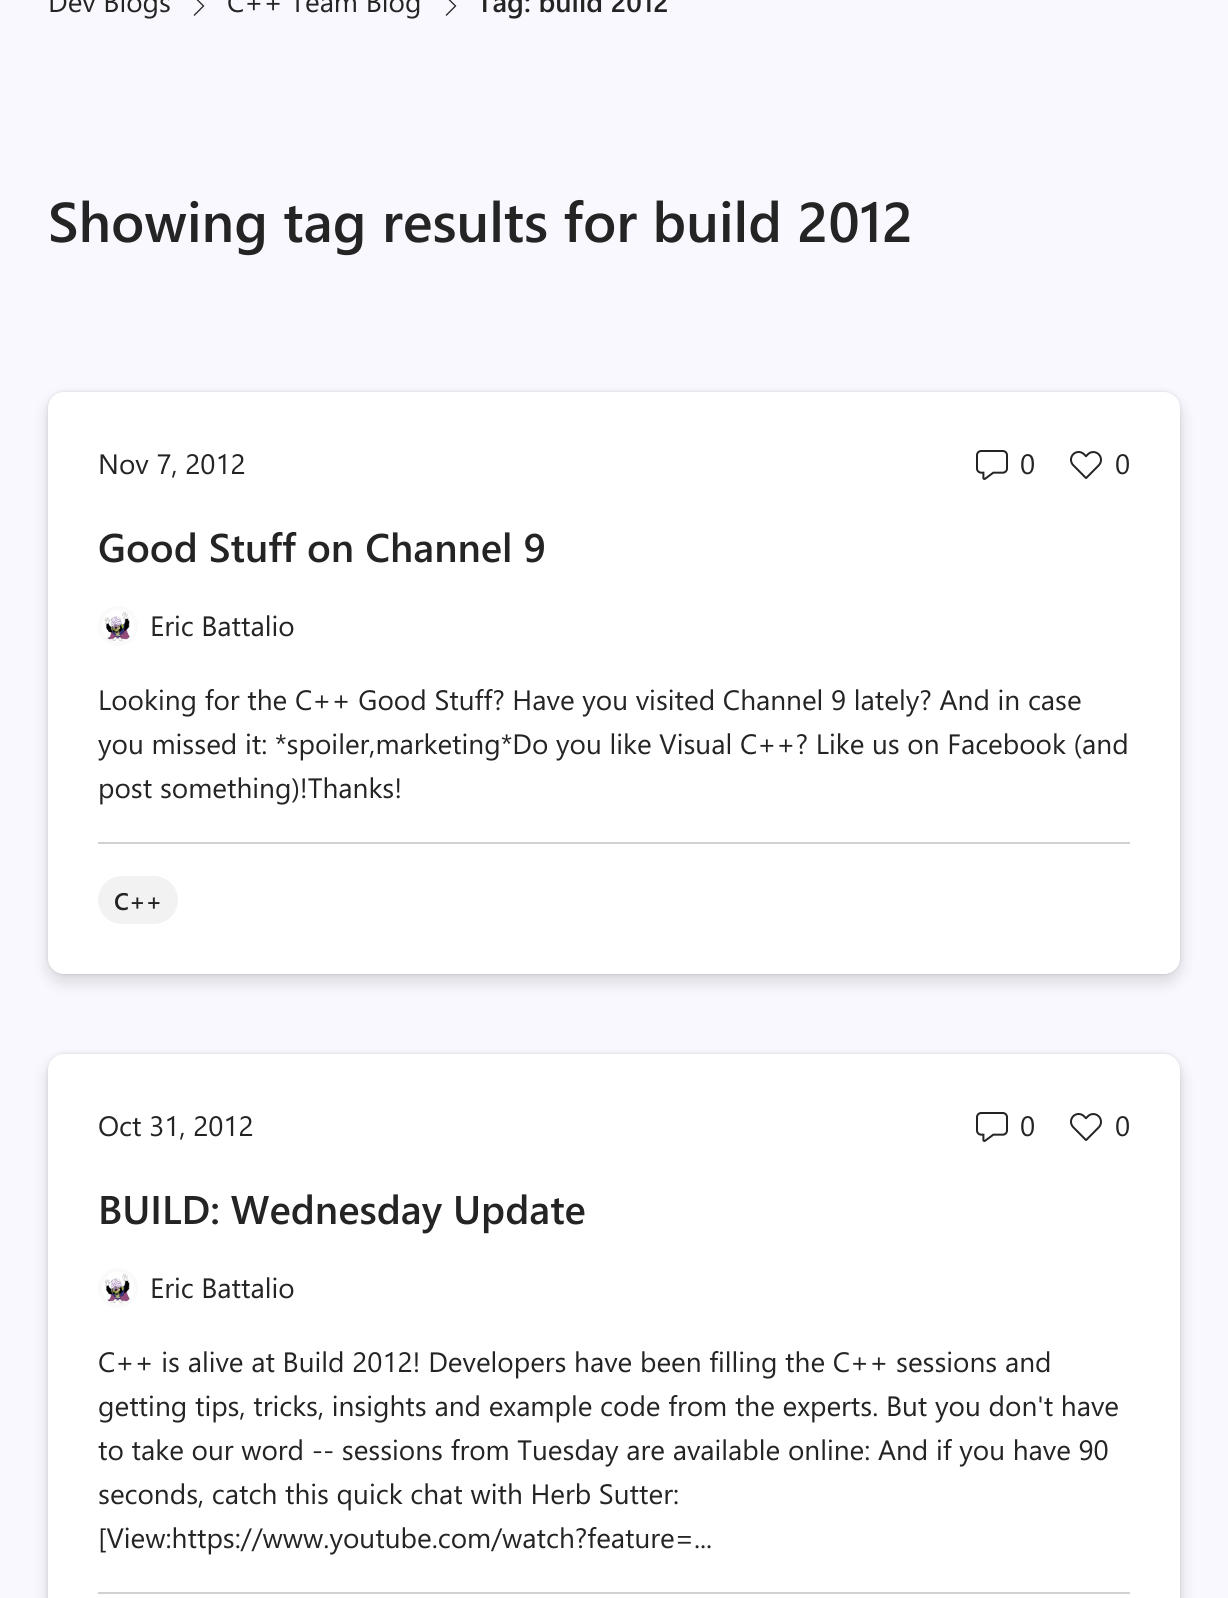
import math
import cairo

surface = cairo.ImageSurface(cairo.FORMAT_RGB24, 1228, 1598)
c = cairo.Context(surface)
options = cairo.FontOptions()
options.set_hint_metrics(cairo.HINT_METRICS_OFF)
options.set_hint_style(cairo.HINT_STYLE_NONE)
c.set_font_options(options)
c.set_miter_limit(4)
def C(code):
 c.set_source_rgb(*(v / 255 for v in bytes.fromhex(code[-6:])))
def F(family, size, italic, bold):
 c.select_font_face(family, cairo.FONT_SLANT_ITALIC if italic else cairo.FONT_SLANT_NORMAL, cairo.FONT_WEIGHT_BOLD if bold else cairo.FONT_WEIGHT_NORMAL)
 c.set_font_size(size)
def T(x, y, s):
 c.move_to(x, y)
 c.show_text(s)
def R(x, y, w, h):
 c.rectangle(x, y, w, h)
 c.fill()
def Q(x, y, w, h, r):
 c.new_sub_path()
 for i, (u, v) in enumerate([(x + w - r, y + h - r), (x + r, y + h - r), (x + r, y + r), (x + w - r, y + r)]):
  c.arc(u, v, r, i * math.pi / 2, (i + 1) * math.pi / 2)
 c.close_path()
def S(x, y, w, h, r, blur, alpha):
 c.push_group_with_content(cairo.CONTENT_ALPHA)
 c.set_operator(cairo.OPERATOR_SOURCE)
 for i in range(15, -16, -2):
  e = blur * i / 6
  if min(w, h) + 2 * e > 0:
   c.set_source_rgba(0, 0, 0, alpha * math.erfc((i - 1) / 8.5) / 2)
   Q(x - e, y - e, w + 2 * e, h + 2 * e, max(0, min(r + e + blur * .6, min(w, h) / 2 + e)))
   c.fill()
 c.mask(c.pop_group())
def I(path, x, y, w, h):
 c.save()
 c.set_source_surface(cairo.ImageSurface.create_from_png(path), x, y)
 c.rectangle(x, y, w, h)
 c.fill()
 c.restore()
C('f9f8fe')
c.paint()
F('Segoe UI',28,0,0)
C('242424')
T(48,12,'Dev Blogs')
c.new_path()
c.move_to(194,-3.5)
c.line_to(203.5,6)
c.line_to(194,15.5)
c.set_line_width(1.3)
c.stroke()
T(227,12,'C++ Team Blog')
c.new_path()
c.move_to(446,-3.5)
c.line_to(455.5,6)
c.line_to(446,15.5)
c.stroke()
F('Segoe UI SemiBold',28,0,0)
T(477,12,'Tag: build 2012')
F('Segoe UI SemiBold',56,0,0)
T(48,242,'Showing tag results for build 2012')
C('000000')
S(48,392,1132,582,16,2,.12)
S(48,400,1132,582,16,8,.14)
C('ffffff')
Q(48,392,1132,582,16)
c.fill()
F('Segoe UI',28,0,0)
C('242424')
T(98,474,'Nov 7, 2012')
I('1.png',976,450,32,30)
T(1020,474,'0')
I('2.png',1070,451,32,28)
T(1115,474,'0')
F('Segoe UI SemiBold',40,0,0)
T(98,562,'Good Stuff on Channel 9')
c.new_path()
c.arc(118,626,18,0,2 * math.pi)
C('fafafa')
c.set_line_width(4)
c.stroke()
I('3.png',104,612,26,30)
F('Segoe UI',28,0,0)
C('242424')
T(150,636,'Eric Battalio')
T(98,710,'Looking for the C++ Good Stuff? Have you visited Channel 9 lately? And in case')
T(98,754,'you missed it: *spoiler,marketing*Do you like Visual C++? Like us on Facebook (and')
T(98,798,'post something)!Thanks!')
C('d1d1d1')
R(98,842,1032,2)
C('f2f2f2')
Q(98,876,80,48,24)
c.fill()
F('Segoe UI SemiBold',24,0,0)
C('242424')
T(114,910,'C++')
C('000000')
S(48,1054,1132,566,16,2,.12)
S(48,1062,1132,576,16,8,.14)
C('ffffff')
Q(48,1054,1132,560,16)
c.fill()
F('Segoe UI',28,0,0)
C('242424')
T(98,1136,'Oct 31, 2012')
I('1.png',976,1112,32,30)
T(1020,1136,'0')
I('2.png',1070,1113,32,28)
T(1115,1136,'0')
F('Segoe UI SemiBold',40,0,0)
T(98,1224,'BUILD: Wednesday Update')
c.new_path()
c.arc(118,1288,18,0,2 * math.pi)
C('fafafa')
c.stroke()
I('3.png',104,1274,26,30)
F('Segoe UI',28,0,0)
C('242424')
T(150,1298,'Eric Battalio')
T(98,1372,'C++ is alive at Build 2012! Developers have been filling the C++ sessions and')
T(98,1416,'getting tips, tricks, insights and example code from the experts. But you don\'t have')
T(98,1460,'to take our word -- sessions from Tuesday are available online: And if you have 90')
T(98,1504,'seconds, catch this quick chat with Herb Sutter:')
T(98,1548,'[View:https://www.youtube.com/watch?feature=...')
C('d1d1d1')
R(98,1592,1032,2)
surface.write_to_png('o.png')
